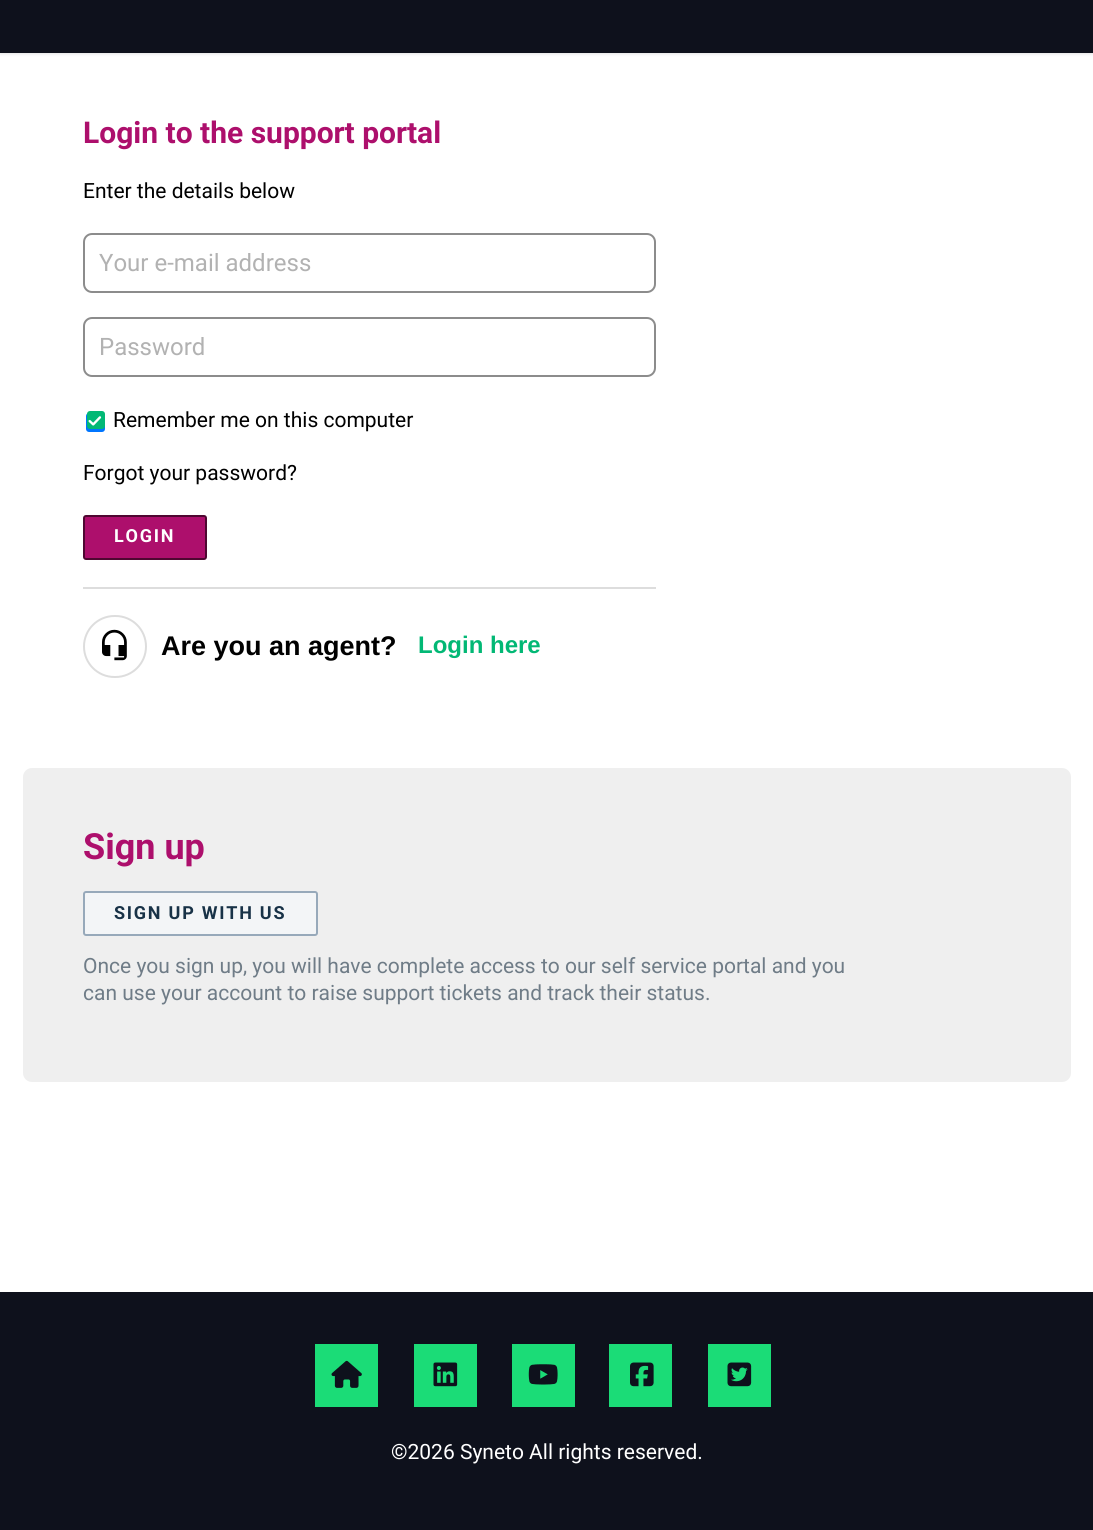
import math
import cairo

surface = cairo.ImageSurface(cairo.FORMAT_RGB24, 1093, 1530)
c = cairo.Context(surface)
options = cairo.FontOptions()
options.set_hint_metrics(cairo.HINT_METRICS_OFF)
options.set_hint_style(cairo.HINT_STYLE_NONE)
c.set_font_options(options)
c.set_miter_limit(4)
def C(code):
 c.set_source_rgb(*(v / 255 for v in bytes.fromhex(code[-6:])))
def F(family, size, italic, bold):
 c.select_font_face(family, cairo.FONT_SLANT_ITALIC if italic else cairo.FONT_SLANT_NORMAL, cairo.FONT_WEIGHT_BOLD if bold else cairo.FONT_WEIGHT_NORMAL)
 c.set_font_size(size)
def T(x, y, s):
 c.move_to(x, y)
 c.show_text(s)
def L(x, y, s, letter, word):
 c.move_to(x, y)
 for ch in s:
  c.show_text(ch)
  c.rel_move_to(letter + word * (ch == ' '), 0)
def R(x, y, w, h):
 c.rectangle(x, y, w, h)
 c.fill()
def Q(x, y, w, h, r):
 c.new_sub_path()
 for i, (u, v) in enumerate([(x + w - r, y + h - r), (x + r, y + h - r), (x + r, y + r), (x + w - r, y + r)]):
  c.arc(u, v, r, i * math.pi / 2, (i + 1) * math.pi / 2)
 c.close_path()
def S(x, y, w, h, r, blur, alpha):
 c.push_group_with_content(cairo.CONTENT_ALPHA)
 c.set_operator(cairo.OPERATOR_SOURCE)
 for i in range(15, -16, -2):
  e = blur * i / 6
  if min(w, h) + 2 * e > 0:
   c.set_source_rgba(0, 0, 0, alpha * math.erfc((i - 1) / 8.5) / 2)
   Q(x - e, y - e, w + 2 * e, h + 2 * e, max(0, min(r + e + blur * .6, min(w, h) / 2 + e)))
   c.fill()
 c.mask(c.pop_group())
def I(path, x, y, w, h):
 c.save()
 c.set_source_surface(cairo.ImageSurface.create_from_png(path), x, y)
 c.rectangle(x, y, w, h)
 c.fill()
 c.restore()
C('ffffff')
c.paint()
C('3f3f44')
S(0,-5,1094,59,0,1.5,.15)
C('0e111c')
R(0,0,1093,53)
F('Roboto',30,0,1)
C('ad0f6c')
T(83,143,'Login to the support portal')
F('Roboto',21,0,0)
C('000000')
T(83,198,'Enter the details below')
Q(84,234,571,58,8)
C('8c8c8c')
c.stroke()
F('Roboto',24,0,0)
C('b2b2b2')
T(99,271,'Your e-mail address')
Q(84,318,571,58,8)
C('8c8c8c')
c.stroke()
C('b2b2b2')
T(99,355,'Password')
C('0075ff')
Q(86,413,19,19,3)
c.fill()
C('02b875')
Q(88,412,16,16,2)
c.fill_preserve()
c.stroke()
I('1.png',88,416,14,10)
F('Roboto',21,0,0)
C('000000')
T(113,427,'Remember me on this computer')
T(83,480,'Forgot your password?')
C('ad0f6c')
Q(84,516,122,43,2)
c.fill_preserve()
C('4f0731')
c.stroke()
F('Roboto',18,0,1)
C('ffffff')
L(114,542,'LOGIN',1.75,0)
C('dddddd')
R(83,587,573,2)
Q(84,616,62,61,30.5)
c.stroke()
I('2.png',102,629,25,32)
F('Liberation Sans',27,0,1)
C('000000')
T(161,655,'Are you an agent?')
F('Liberation Sans',24,0,1)
C('02b875')
T(418,653,'Login here')
C('efefef')
Q(23,768,1048,314,9)
c.fill()
F('Roboto',36,0,1)
C('ad0f6c')
T(83,859,'Sign up')
C('f3f5f7')
Q(84,892,233,43,2)
c.fill_preserve()
C('97a9ba')
c.stroke()
F('Roboto',18,0,1)
C('183247')
L(114,919,'SIGN UP WITH US',1.75,0)
F('Roboto',21,0,0)
C('6f7c87')
T(83,973,'Once you sign up, you will have complete access to our self service portal and you')
T(83,1000,'can use your account to raise support tickets and track their status.')
C('0e111c')
R(0,1292,1093,238)
C('1bdc77')
R(315,1344,63,63)
I('3.png',331,1360,31,28)
R(414,1344,63,63)
I('4.png',433,1362,25,25)
R(512,1344,63,63)
I('5.png',528,1364,30,21)
R(609,1344,63,63)
I('6.png',630,1362,24,25)
R(708,1344,63,63)
I('7.png',727,1362,25,25)
C('ffffff')
T(391,1459,'©2026 Syneto All rights reserved.')
surface.write_to_png('o.png')
